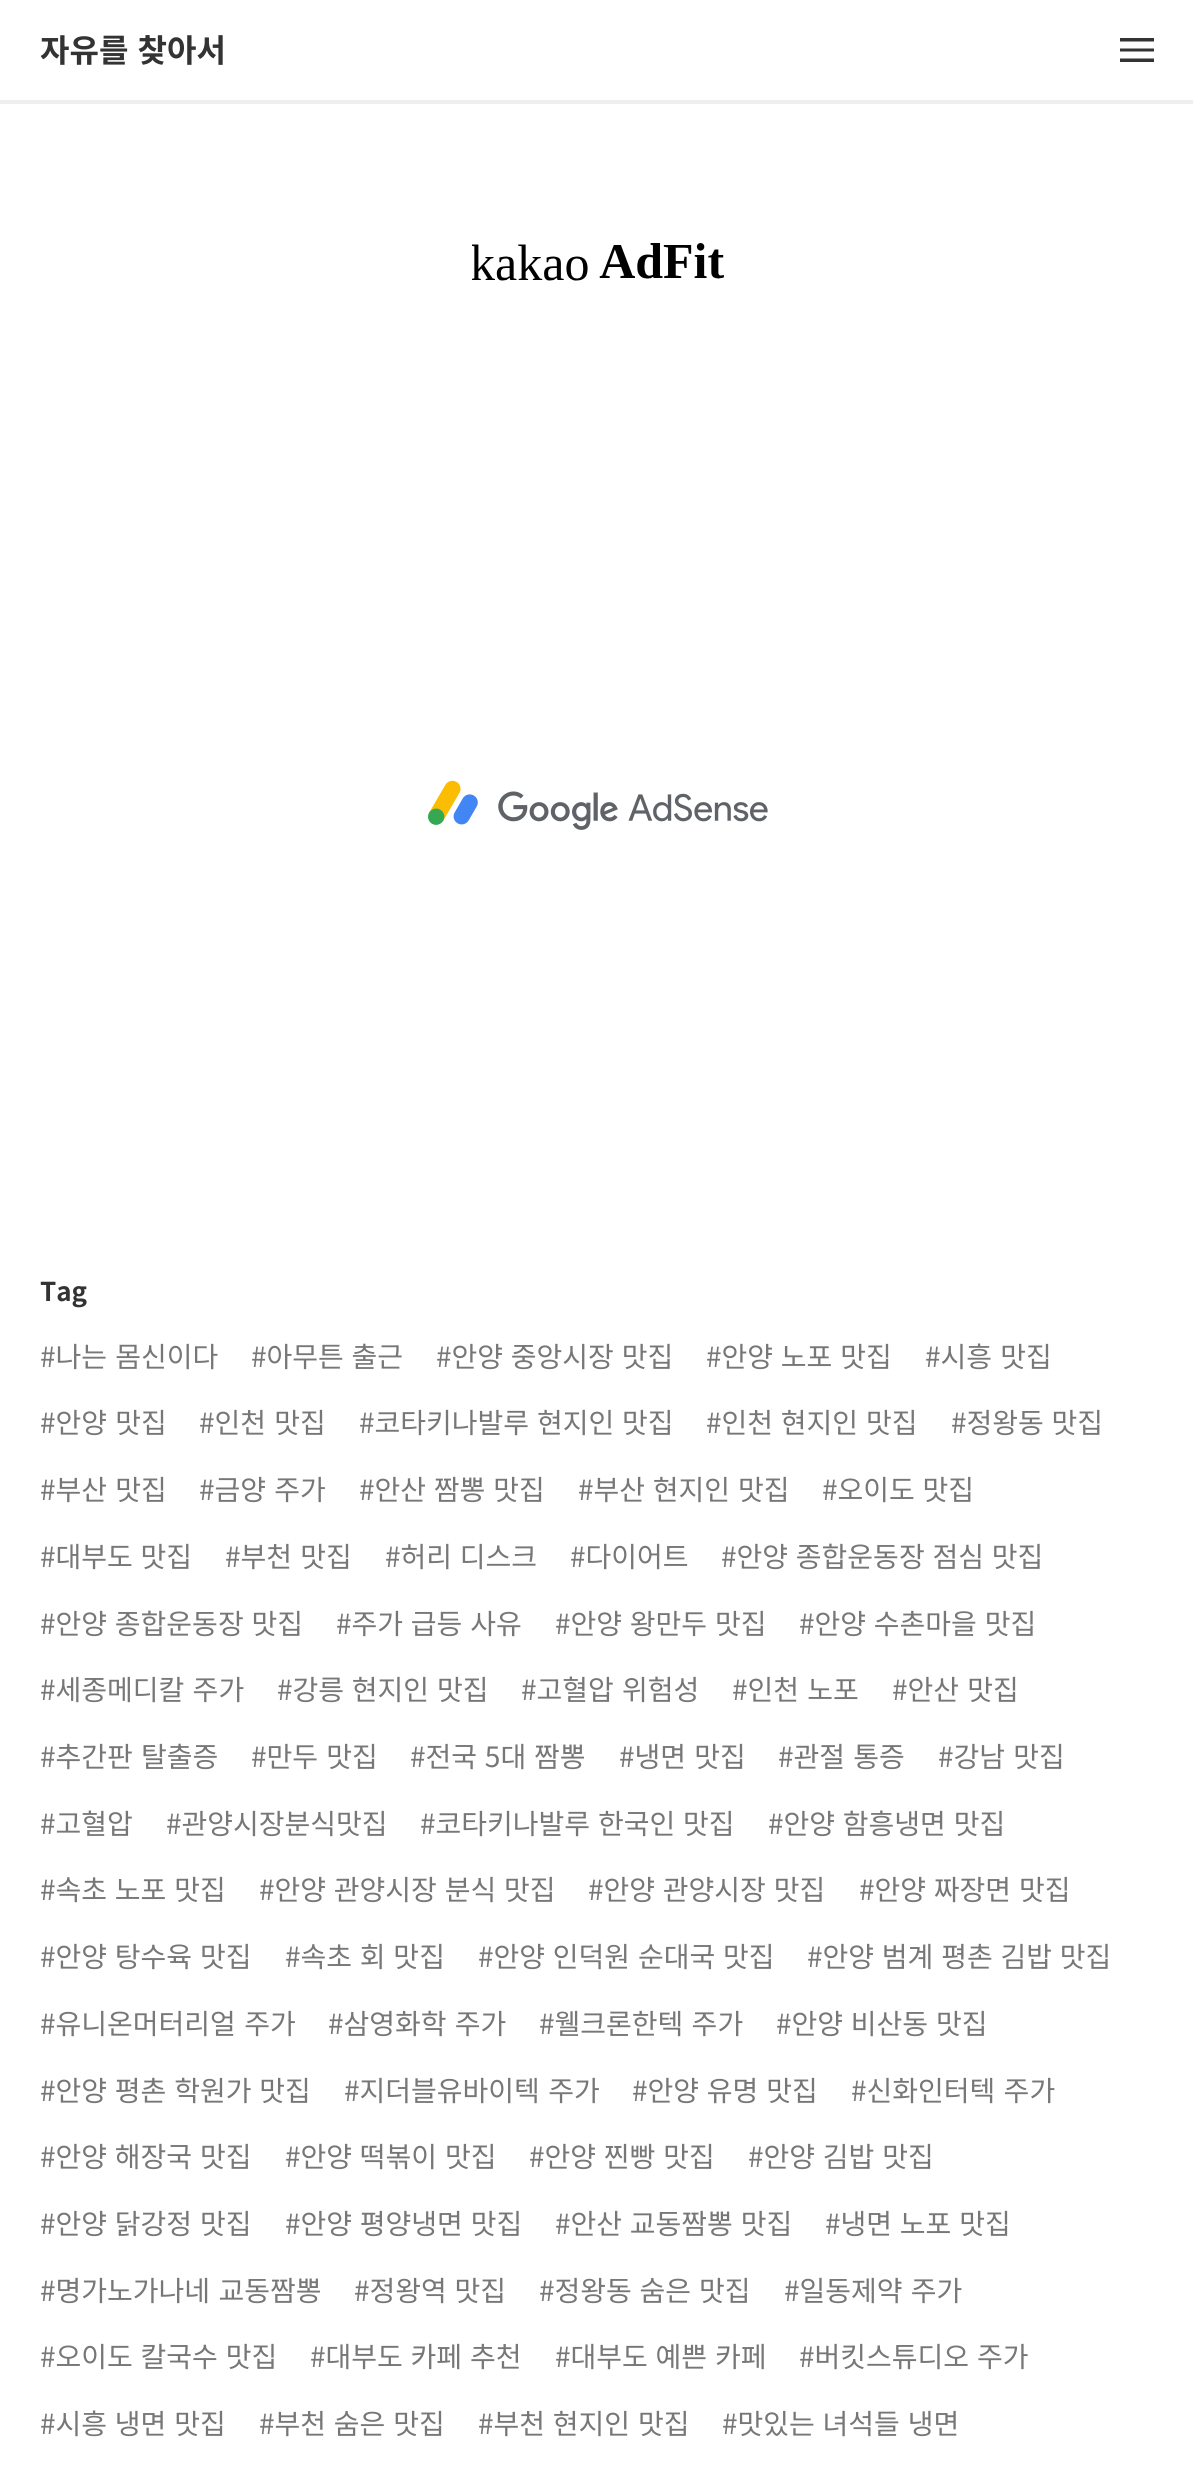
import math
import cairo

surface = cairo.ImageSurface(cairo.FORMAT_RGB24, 1193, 2465)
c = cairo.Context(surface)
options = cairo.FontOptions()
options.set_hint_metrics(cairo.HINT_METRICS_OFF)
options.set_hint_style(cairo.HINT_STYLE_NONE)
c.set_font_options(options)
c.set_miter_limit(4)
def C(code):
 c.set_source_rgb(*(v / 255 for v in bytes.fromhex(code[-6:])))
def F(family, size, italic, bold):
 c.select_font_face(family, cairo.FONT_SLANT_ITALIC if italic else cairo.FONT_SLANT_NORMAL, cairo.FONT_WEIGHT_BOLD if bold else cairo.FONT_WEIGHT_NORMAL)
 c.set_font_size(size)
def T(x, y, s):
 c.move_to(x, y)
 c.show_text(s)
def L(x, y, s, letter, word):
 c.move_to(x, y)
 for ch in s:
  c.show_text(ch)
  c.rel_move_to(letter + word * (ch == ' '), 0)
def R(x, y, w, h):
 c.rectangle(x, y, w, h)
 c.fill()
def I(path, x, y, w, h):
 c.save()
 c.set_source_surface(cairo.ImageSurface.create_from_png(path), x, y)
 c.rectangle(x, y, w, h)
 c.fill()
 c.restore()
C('ffffff')
c.paint()
C('efefef')
R(0,100,1193,4)
F('Noto Sans KR',32,0,1)
C('333333')
L(40,62,'자유를 찾아서',0,2)
c.set_fill_rule(cairo.FILL_RULE_EVEN_ODD)
c.new_path()
c.move_to(1120,38)
c.line_to(1154,38)
c.line_to(1154,41.5)
c.line_to(1120,41.5)
c.close_path()
c.move_to(1120,48.5)
c.line_to(1154,48.5)
c.line_to(1154,51.5)
c.line_to(1120,51.5)
c.close_path()
c.move_to(1120,58.5)
c.line_to(1154,58.5)
c.line_to(1154,62)
c.line_to(1120,62)
c.close_path()
c.fill()
I('1.png',472,243,252,38)
I('2.png',428,780,340,50)
F('Noto Sans KR',26,0,1)
T(40,1301,'Tag')
F('Noto Sans KR',28,0,0)
C('777777')
L(40,1367,'#나는 몸신이다',0,2)
L(251,1367,'#아무튼 출근',0,1.5)
L(436,1367,'#안양 중앙시장 맛집',0,1.5)
L(706,1367,'#안양 노포 맛집',0,1.5)
L(925,1367,'#시흥 맛집',0,2)
L(40,1433,'#안양 맛집',0,2)
L(199,1433,'#인천 맛집',0,2)
L(359,1433,'#코타키나발루 현지인 맛집',0,1.5)
L(706,1433,'#인천 현지인 맛집',0,1.5)
L(951,1433,'#정왕동 맛집',0,1.5)
L(40,1500,'#부산 맛집',0,2)
L(199,1500,'#금양 주가',0,2)
L(359,1500,'#안산 짬뽕 맛집',0,1.5)
L(578,1500,'#부산 현지인 맛집',0,1.5)
L(822,1500,'#오이도 맛집',0,1.5)
L(40,1567,'#대부도 맛집',0,1.5)
L(225,1567,'#부천 맛집',0,2)
L(385,1567,'#허리 디스크',0,1.5)
T(570,1567,'#다이어트')
L(721,1567,'#안양 종합운동장 점심 맛집',0,1.5)
L(40,1634,'#안양 종합운동장 맛집',0,1.5)
L(336,1634,'#주가 급등 사유',0,1.5)
L(555,1634,'#안양 왕만두 맛집',0,1.5)
L(799,1634,'#안양 수촌마을 맛집',0,1.5)
L(40,1700,'#세종메디칼 주가',0,2)
L(277,1700,'#강릉 현지인 맛집',0,1.5)
L(521,1700,'#고혈압 위험성',0,2)
L(732,1700,'#인천 노포',0,2)
L(892,1700,'#안산 맛집',0,2)
L(40,1767,'#추간판 탈출증',0,2)
L(251,1767,'#만두 맛집',0,2)
L(410,1767,'#전국 5대 짬뽕',0,1.5)
L(619,1767,'#냉면 맛집',0,2)
L(778,1767,'#관절 통증',0,2)
L(938,1767,'#강남 맛집',0,2)
T(40,1834,'#고혈압')
T(166,1834,'#관양시장분식맛집')
L(420,1834,'#코타키나발루 한국인 맛집',0,1.5)
L(768,1834,'#안양 함흥냉면 맛집',0,1.5)
L(40,1900,'#속초 노포 맛집',0,1.5)
L(259,1900,'#안양 관양시장 분식 맛집',0,1.5)
L(588,1900,'#안양 관양시장 맛집',0,1.5)
L(859,1900,'#안양 짜장면 맛집',0,1.5)
L(40,1967,'#안양 탕수육 맛집',0,1.5)
L(285,1967,'#속초 회 맛집',0,1.5)
L(478,1967,'#안양 인덕원 순대국 맛집',0,1.5)
L(807,1967,'#안양 범계 평촌 김밥 맛집',0,1.5)
L(40,2034,'#유니온머터리얼 주가',0,2)
L(328,2034,'#삼영화학 주가',0,2)
L(539,2034,'#웰크론한텍 주가',0,2)
L(776,2034,'#안양 비산동 맛집',0,1.5)
L(40,2101,'#안양 평촌 학원가 맛집',0,1.5)
L(344,2101,'#지더블유바이텍 주가',0,2)
L(632,2101,'#안양 유명 맛집',0,1.5)
L(851,2101,'#신화인터텍 주가',0,2)
L(40,2167,'#안양 해장국 맛집',0,1.5)
L(285,2167,'#안양 떡볶이 맛집',0,1.5)
L(529,2167,'#안양 찐빵 맛집',0,1.5)
L(748,2167,'#안양 김밥 맛집',0,1.5)
L(40,2234,'#안양 닭강정 맛집',0,1.5)
L(285,2234,'#안양 평양냉면 맛집',0,1.5)
L(555,2234,'#안산 교동짬뽕 맛집',0,1.5)
L(825,2234,'#냉면 노포 맛집',0,1.5)
L(40,2301,'#명가노가나네 교동짬뽕',0,2)
L(354,2301,'#정왕역 맛집',0,1.5)
L(539,2301,'#정왕동 숨은 맛집',0,1.5)
L(784,2301,'#일동제약 주가',0,2)
L(40,2367,'#오이도 칼국수 맛집',0,1.5)
L(310,2367,'#대부도 카페 추천',0,1.5)
L(555,2367,'#대부도 예쁜 카페',0,1.5)
L(799,2367,'#버킷스튜디오 주가',0,1.5)
L(40,2434,'#시흥 냉면 맛집',0,1.5)
L(259,2434,'#부천 숨은 맛집',0,1.5)
L(478,2434,'#부천 현지인 맛집',0,1.5)
L(722,2434,'#맛있는 녀석들 냉면',0,1.5)
surface.write_to_png('o.png')
